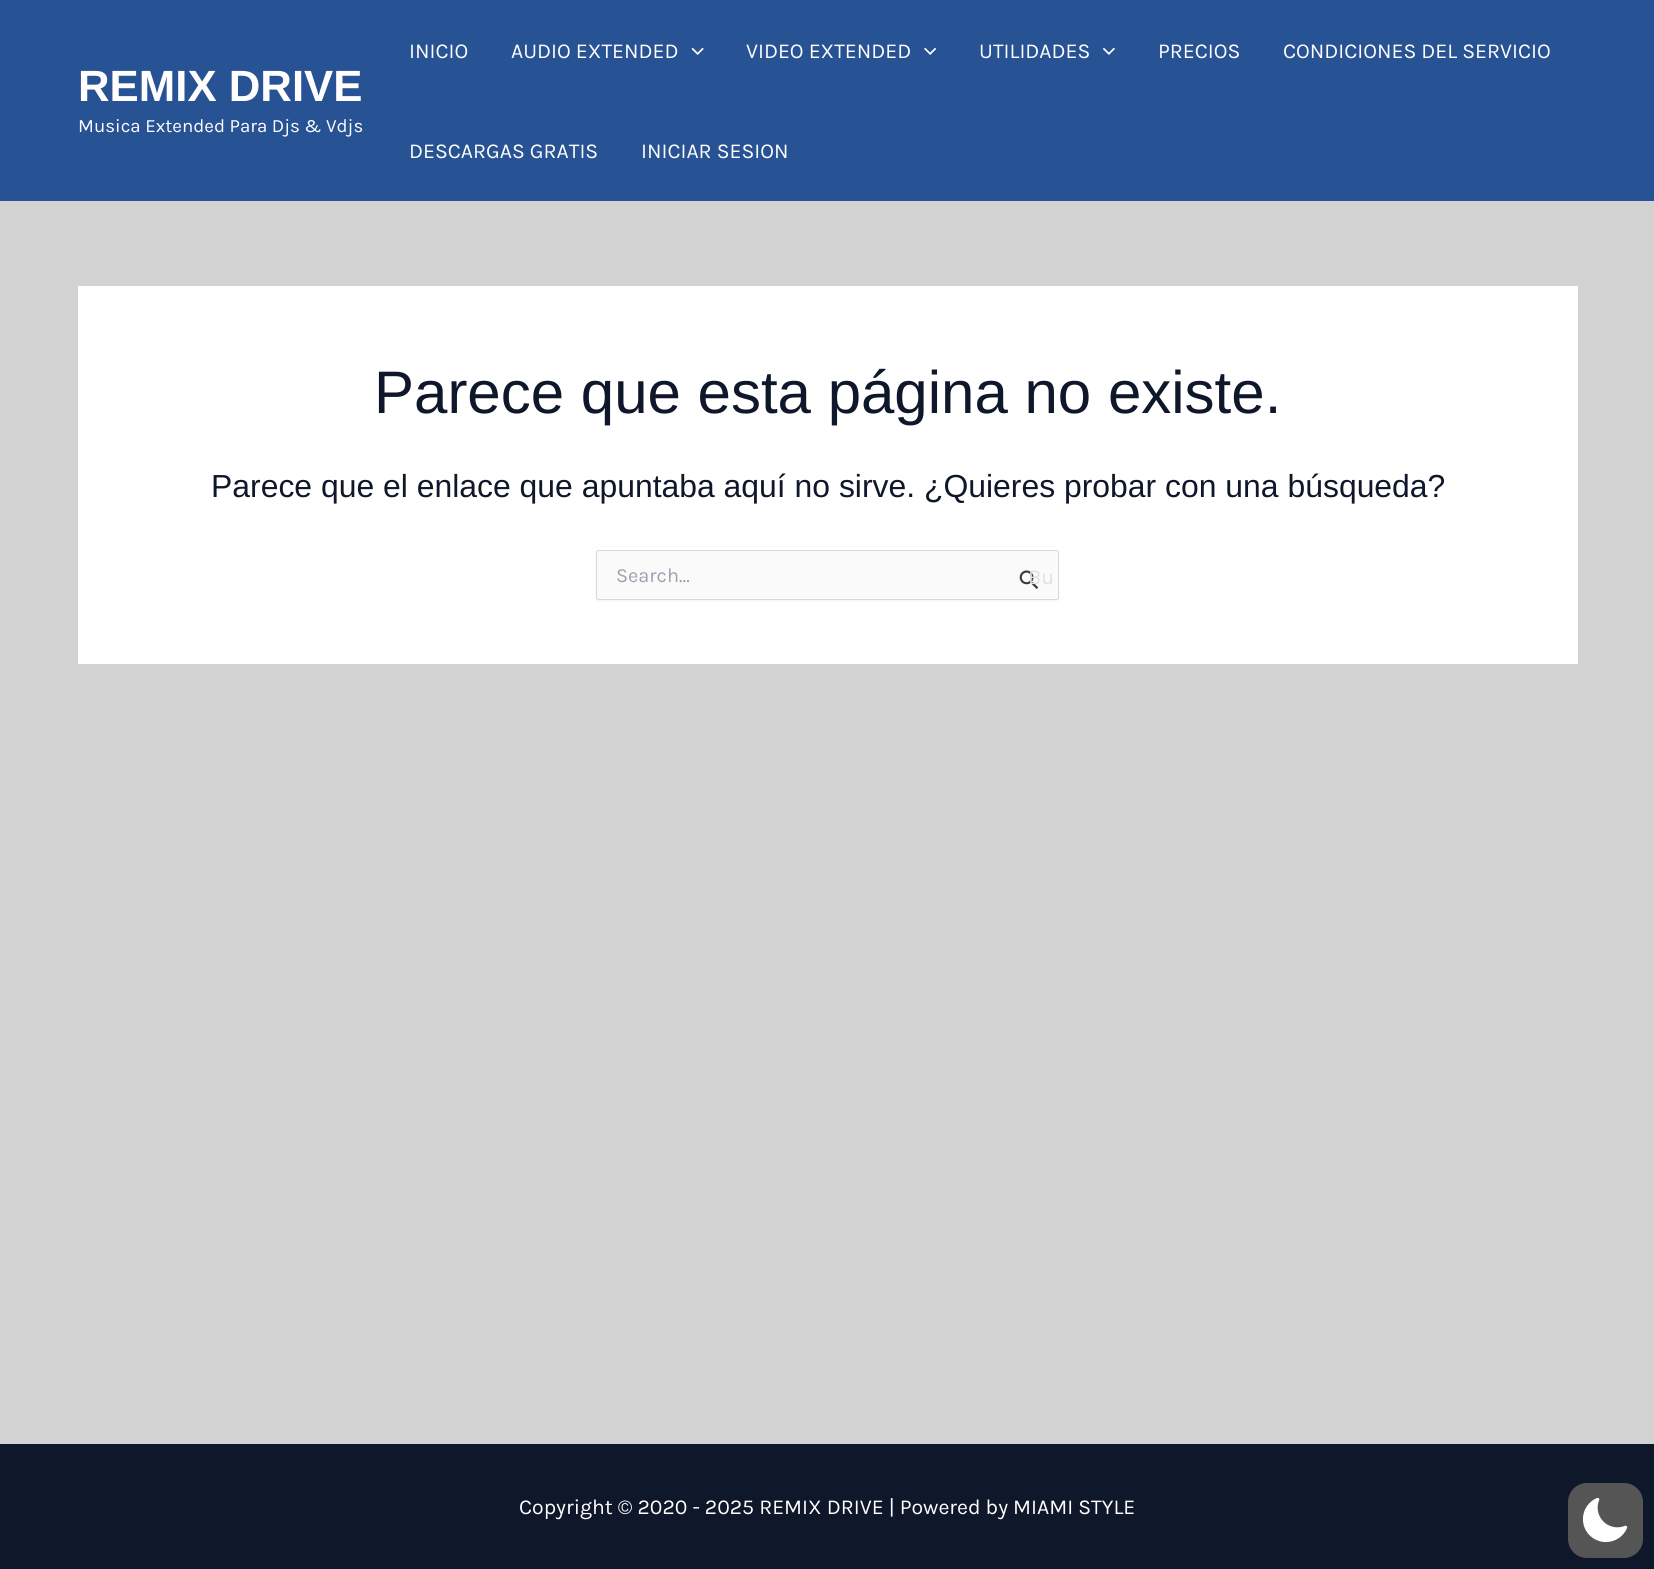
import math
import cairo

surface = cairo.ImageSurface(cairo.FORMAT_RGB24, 1654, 1569)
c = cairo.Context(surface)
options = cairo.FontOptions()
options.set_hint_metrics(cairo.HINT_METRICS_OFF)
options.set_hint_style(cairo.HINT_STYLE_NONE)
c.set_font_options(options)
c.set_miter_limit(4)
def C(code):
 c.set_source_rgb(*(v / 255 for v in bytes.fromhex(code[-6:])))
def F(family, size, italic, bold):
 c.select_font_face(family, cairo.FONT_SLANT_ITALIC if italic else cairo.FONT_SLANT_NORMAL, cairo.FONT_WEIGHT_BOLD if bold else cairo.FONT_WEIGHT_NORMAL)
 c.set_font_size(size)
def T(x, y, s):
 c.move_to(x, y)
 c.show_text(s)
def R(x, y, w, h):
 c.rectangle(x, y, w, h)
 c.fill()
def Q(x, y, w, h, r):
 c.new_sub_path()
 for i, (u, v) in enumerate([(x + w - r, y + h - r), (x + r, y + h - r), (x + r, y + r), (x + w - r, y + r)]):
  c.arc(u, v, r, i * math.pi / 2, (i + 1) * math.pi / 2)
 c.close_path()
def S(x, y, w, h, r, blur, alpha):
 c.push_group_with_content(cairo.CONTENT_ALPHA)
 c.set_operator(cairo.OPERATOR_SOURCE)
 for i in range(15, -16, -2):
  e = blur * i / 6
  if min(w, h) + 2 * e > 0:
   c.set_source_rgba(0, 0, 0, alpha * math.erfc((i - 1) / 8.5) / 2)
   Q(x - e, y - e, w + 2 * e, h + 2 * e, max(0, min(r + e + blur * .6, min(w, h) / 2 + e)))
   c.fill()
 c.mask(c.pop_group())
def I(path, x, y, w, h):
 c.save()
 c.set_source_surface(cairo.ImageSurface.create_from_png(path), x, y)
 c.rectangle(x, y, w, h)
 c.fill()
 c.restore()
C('d2d2d2')
c.paint()
C('275294')
R(0,0,1654,201)
F('Liberation Sans',43.75,0,1)
C('fffdfd')
T(78,101,'REMIX DRIVE')
F('Karla',18.75,0,0)
T(78,132,'Musica Extended Para Djs & Vdjs')
F('Karla',21.25,0,0)
T(409,58,'INICIO')
T(511,58,'AUDIO EXTENDED')
I('1.png',691,47,13,8)
T(746,58,'VIDEO EXTENDED')
I('2.png',924,47,12,8)
T(979,58,'UTILIDADES')
I('3.png',1103,47,12,8)
T(1158,58,'PRECIOS')
T(1283,58,'CONDICIONES DEL SERVICIO')
T(409,158,'DESCARGAS GRATIS')
T(641,158,'INICIAR SESION')
C('ffffff')
R(78,286,1500,378)
F('Liberation Sans',60,0,0)
C('0f172a')
T(374,413,'Parece que esta página no existe.')
F('Liberation Sans',31.9,0,0)
T(211,497,'Parece que el enlace que apuntaba aquí no sirve. ¿Quieres probar con una búsqueda?')
C('000000')
S(596,551,463,50,2.5,1,.05)
C('fafafa')
Q(596.5,550.5,462,49,2)
c.fill_preserve()
C('d1dae5')
c.set_line_width(1)
c.stroke()
F('Karla',20,0,0)
C('9ca3af')
T(616,582,'Search...')
I('4.png',1019,570,19,19)
F('Karla',21.25,0,0)
C('e0e0e0')
T(1028,584,'Bu')
C('0f172a')
R(0,1444,1654,125)
C('fffdfd')
T(519,1514,'Copyright © 2020 - 2025 REMIX DRIVE | Powered by MIAMI STYLE')
C('555555')
Q(1568,1483,75,75,19)
c.fill()
I('5.png',1583,1498,45,45)
surface.write_to_png('o.png')
